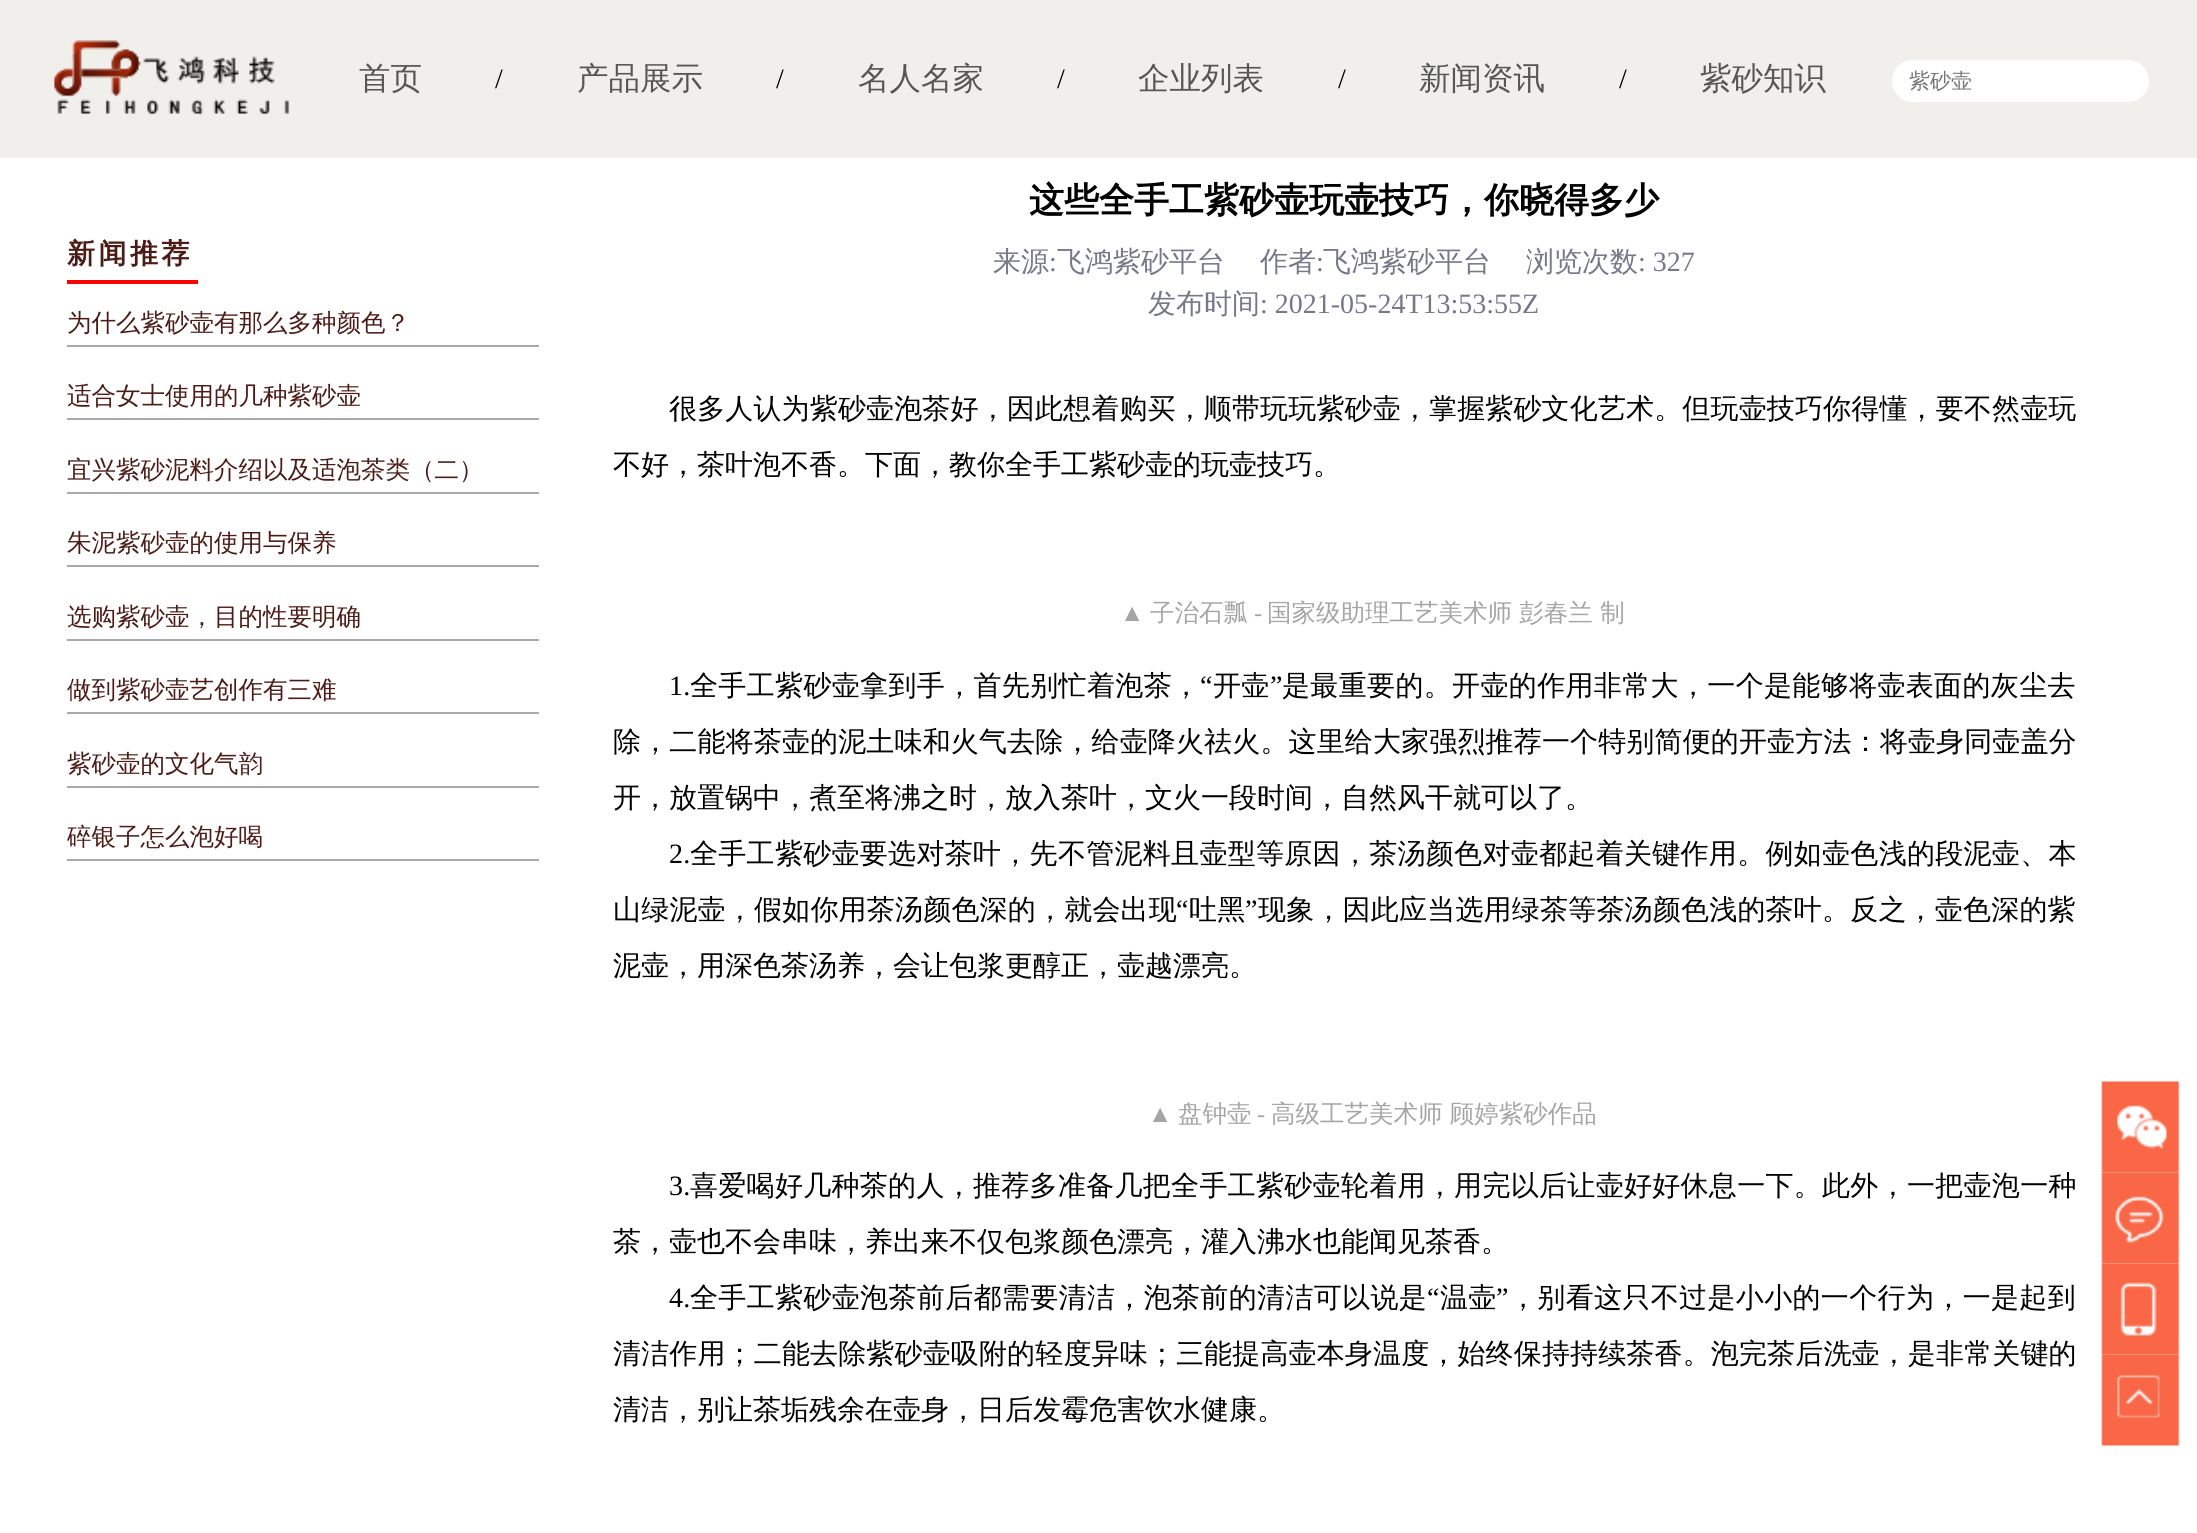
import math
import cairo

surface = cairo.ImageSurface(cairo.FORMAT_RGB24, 2197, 1533)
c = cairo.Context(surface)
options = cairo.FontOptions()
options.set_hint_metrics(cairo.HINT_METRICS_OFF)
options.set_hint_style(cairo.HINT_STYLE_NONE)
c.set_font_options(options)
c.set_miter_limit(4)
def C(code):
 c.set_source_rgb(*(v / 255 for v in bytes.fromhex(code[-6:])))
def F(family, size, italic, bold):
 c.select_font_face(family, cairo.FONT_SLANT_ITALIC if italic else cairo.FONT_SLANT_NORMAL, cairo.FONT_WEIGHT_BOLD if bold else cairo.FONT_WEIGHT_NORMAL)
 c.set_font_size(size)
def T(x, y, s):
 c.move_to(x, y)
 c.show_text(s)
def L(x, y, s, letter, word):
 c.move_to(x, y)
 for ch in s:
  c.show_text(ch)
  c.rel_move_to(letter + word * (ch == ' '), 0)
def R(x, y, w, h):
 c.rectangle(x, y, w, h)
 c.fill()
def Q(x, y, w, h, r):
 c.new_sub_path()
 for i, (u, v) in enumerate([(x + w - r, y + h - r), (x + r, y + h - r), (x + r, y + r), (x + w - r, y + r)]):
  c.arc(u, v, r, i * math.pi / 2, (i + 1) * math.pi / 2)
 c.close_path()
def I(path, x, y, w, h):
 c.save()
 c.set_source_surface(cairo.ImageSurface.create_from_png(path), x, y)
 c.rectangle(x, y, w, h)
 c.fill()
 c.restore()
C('ffffff')
c.paint()
C('f0efeb')
R(0,0,2197,158)
I('1.png',54,40,236,76)
F('WenQuanYi Zen Hei Medium',31.5,0,0)
C('565656')
T(359,89,'首页')
F('Liberation Serif',28,0,0)
C('000000')
T(495,88,'/')
F('WenQuanYi Zen Hei Medium',31.5,0,0)
C('565656')
T(577,89,'产品展示')
F('Liberation Serif',28,0,0)
C('000000')
T(776,88,'/')
F('WenQuanYi Zen Hei Medium',31.5,0,0)
C('565656')
T(858,89,'名人名家')
F('Liberation Serif',28,0,0)
C('000000')
T(1057,88,'/')
F('WenQuanYi Zen Hei Medium',31.5,0,0)
C('565656')
T(1138,89,'企业列表')
F('Liberation Serif',28,0,0)
C('000000')
T(1338,88,'/')
F('WenQuanYi Zen Hei Medium',31.5,0,0)
C('565656')
T(1419,89,'新闻资讯')
F('Liberation Serif',28,0,0)
C('000000')
T(1619,88,'/')
F('WenQuanYi Zen Hei Medium',31.5,0,0)
C('565656')
T(1700,89,'紫砂知识')
C('ffffff')
Q(1892,60,257,42,21)
c.fill()
F('WenQuanYi Zen Hei Medium',21,0,0)
C('757575')
T(1909,88,'紫砂壶')
C('ff0000')
R(67,280,131,4)
F('WenQuanYi Zen Hei',28,0,1)
C('4d1b15')
L(67,263,'新闻推荐',3.5,0)
C('a9a9a9')
R(67,345,472,2)
F('WenQuanYi Zen Hei Medium',24.5,0,0)
C('4d1b15')
T(67,331,'为什么紫砂壶有那么多种颜色？')
C('a9a9a9')
R(67,418,472,2)
C('4d1b15')
T(67,404,'适合女士使用的几种紫砂壶')
C('a9a9a9')
R(67,492,472,2)
C('4d1b15')
T(67,478,'宜兴紫砂泥料介绍以及适泡茶类（二）')
C('a9a9a9')
R(67,565,472,2)
C('4d1b15')
T(67,551,'朱泥紫砂壶的使用与保养')
C('a9a9a9')
R(67,639,472,2)
C('4d1b15')
T(67,625,'选购紫砂壶，目的性要明确')
C('a9a9a9')
R(67,712,472,2)
C('4d1b15')
T(67,698,'做到紫砂壶艺创作有三难')
C('a9a9a9')
R(67,786,472,2)
C('4d1b15')
T(67,772,'紫砂壶的文化气韵')
C('a9a9a9')
R(67,859,472,2)
C('4d1b15')
T(67,845,'碎银子怎么泡好喝')
F('WenQuanYi Zen Hei',35,0,1)
C('000000')
T(1029,212,'这些全手工紫砂壶玩壶技巧，你晓得多少')
F('WenQuanYi Zen Hei Medium',28,0,0)
C('76788a')
T(993,271,'来源')
F('Liberation Serif',28,0,0)
T(1049,271,':')
F('WenQuanYi Zen Hei Medium',28,0,0)
T(1057,271,'飞鸿紫砂平台')
T(1260,271,'作者')
F('Liberation Serif',28,0,0)
T(1316,271,':')
F('WenQuanYi Zen Hei Medium',28,0,0)
T(1323,271,'飞鸿紫砂平台')
T(1526,271,'浏览次数')
F('Liberation Serif',28,0,0)
T(1638,271,': 327')
F('WenQuanYi Zen Hei Medium',28,0,0)
T(1148,313,'发布时间')
F('Liberation Serif',28,0,0)
T(1260,313,': 2021-05-24T13:53:55Z')
F('WenQuanYi Zen Hei Medium',28,0,0)
C('000000')
L(669,418,'很多人认为紫砂壶泡茶好，因此想着购买，顺带玩玩紫砂壶，掌握紫砂文化艺术。但玩壶技巧你得懂，要不然壶玩',.15,0)
T(613,474,'不好，茶叶泡不香。下面，教你全手工紫砂壶的玩壶技巧。')
F('Liberation Serif',24.5,0,0)
C('a5a5a5')
T(1120,621,'▲')
F('WenQuanYi Zen Hei Medium',24.5,0,0)
T(1150,621,'子治石瓢')
F('Liberation Serif',24.5,0,0)
T(1254,621,'-')
F('WenQuanYi Zen Hei Medium',24.5,0,0)
T(1267,621,'国家级助理工艺美术师 彭春兰 制')
F('Liberation Serif',28,0,0)
C('000000')
L(669,695,'1.',.35,0)
F('WenQuanYi Zen Hei Medium',28,0,0)
L(690,695,'全手工紫砂壶拿到手，首先别忙着泡茶，',.35,0)
F('Liberation Serif',28,0,0)
L(1200,695,'“',.35,0)
F('WenQuanYi Zen Hei Medium',28,0,0)
L(1213,695,'开壶',.35,0)
F('Liberation Serif',28,0,0)
L(1270,695,'”',.35,0)
F('WenQuanYi Zen Hei Medium',28,0,0)
L(1282,695,'是最重要的。开壶的作用非常大，一个是能够将壶表面的灰尘去',.35,0)
L(613,751,'除，二能将茶壶的泥土味和火气去除，给壶降火祛火。这里给大家强烈推荐一个特别简便的开壶方法：将壶身同壶盖分',.15,0)
T(613,807,'开，放置锅中，煮至将沸之时，放入茶叶，文火一段时间，自然风干就可以了。')
F('Liberation Serif',28,0,0)
L(669,863,'2.',.3,0)
F('WenQuanYi Zen Hei Medium',28,0,0)
L(690,863,'全手工紫砂壶要选对茶叶，先不管泥料且壶型等原因，茶汤颜色对壶都起着关键作用。例如壶色浅的段泥壶、本',.3,0)
L(613,919,'山绿泥壶，假如你用茶汤颜色深的，就会出现',.2,0)
F('Liberation Serif',28,0,0)
L(1176,919,'“',.2,0)
F('WenQuanYi Zen Hei Medium',28,0,0)
L(1189,919,'吐黑',.2,0)
F('Liberation Serif',28,0,0)
L(1245,919,'”',.2,0)
F('WenQuanYi Zen Hei Medium',28,0,0)
L(1258,919,'现象，因此应当选用绿茶等茶汤颜色浅的茶叶。反之，壶色深的紫',.2,0)
T(613,975,'泥壶，用深色茶汤养，会让包浆更醇正，壶越漂亮。')
F('Liberation Serif',24.5,0,0)
C('a5a5a5')
T(1148,1122,'▲')
F('WenQuanYi Zen Hei Medium',24.5,0,0)
T(1178,1122,'盘钟壶')
F('Liberation Serif',24.5,0,0)
T(1257,1122,'-')
F('WenQuanYi Zen Hei Medium',24.5,0,0)
T(1271,1122,'高级工艺美术师 顾婷紫砂作品')
F('Liberation Serif',28,0,0)
C('000000')
L(669,1195,'3.',.3,0)
F('WenQuanYi Zen Hei Medium',28,0,0)
L(690,1195,'喜爱喝好几种茶的人，推荐多准备几把全手工紫砂壶轮着用，用完以后让壶好好休息一下。此外，一把壶泡一种',.3,0)
T(613,1251,'茶，壶也不会串味，养出来不仅包浆颜色漂亮，灌入沸水也能闻见茶香。')
F('Liberation Serif',28,0,0)
L(669,1307,'4.',.35,0)
F('WenQuanYi Zen Hei Medium',28,0,0)
L(690,1307,'全手工紫砂壶泡茶前后都需要清洁，泡茶前的清洁可以说是',.35,0)
F('Liberation Serif',28,0,0)
L(1427,1307,'“',.35,0)
F('WenQuanYi Zen Hei Medium',28,0,0)
L(1440,1307,'温壶',.35,0)
F('Liberation Serif',28,0,0)
L(1496,1307,'”',.35,0)
F('WenQuanYi Zen Hei Medium',28,0,0)
L(1509,1307,'，别看这只不过是小小的一个行为，一是起到',.35,0)
L(613,1363,'清洁作用；二能去除紫砂壶吸附的轻度异味；三能提高壶本身温度，始终保持持续茶香。泡完茶后洗壶，是非常关键的',.15,0)
T(613,1419,'清洁，别让茶垢残余在壶身，日后发霉危害饮水健康。')
I('2.png',2101,1081,79,92)
I('3.png',2101,1172,79,92)
I('4.png',2101,1263,79,92)
I('5.png',2101,1354,79,92)
surface.write_to_png('o.png')
